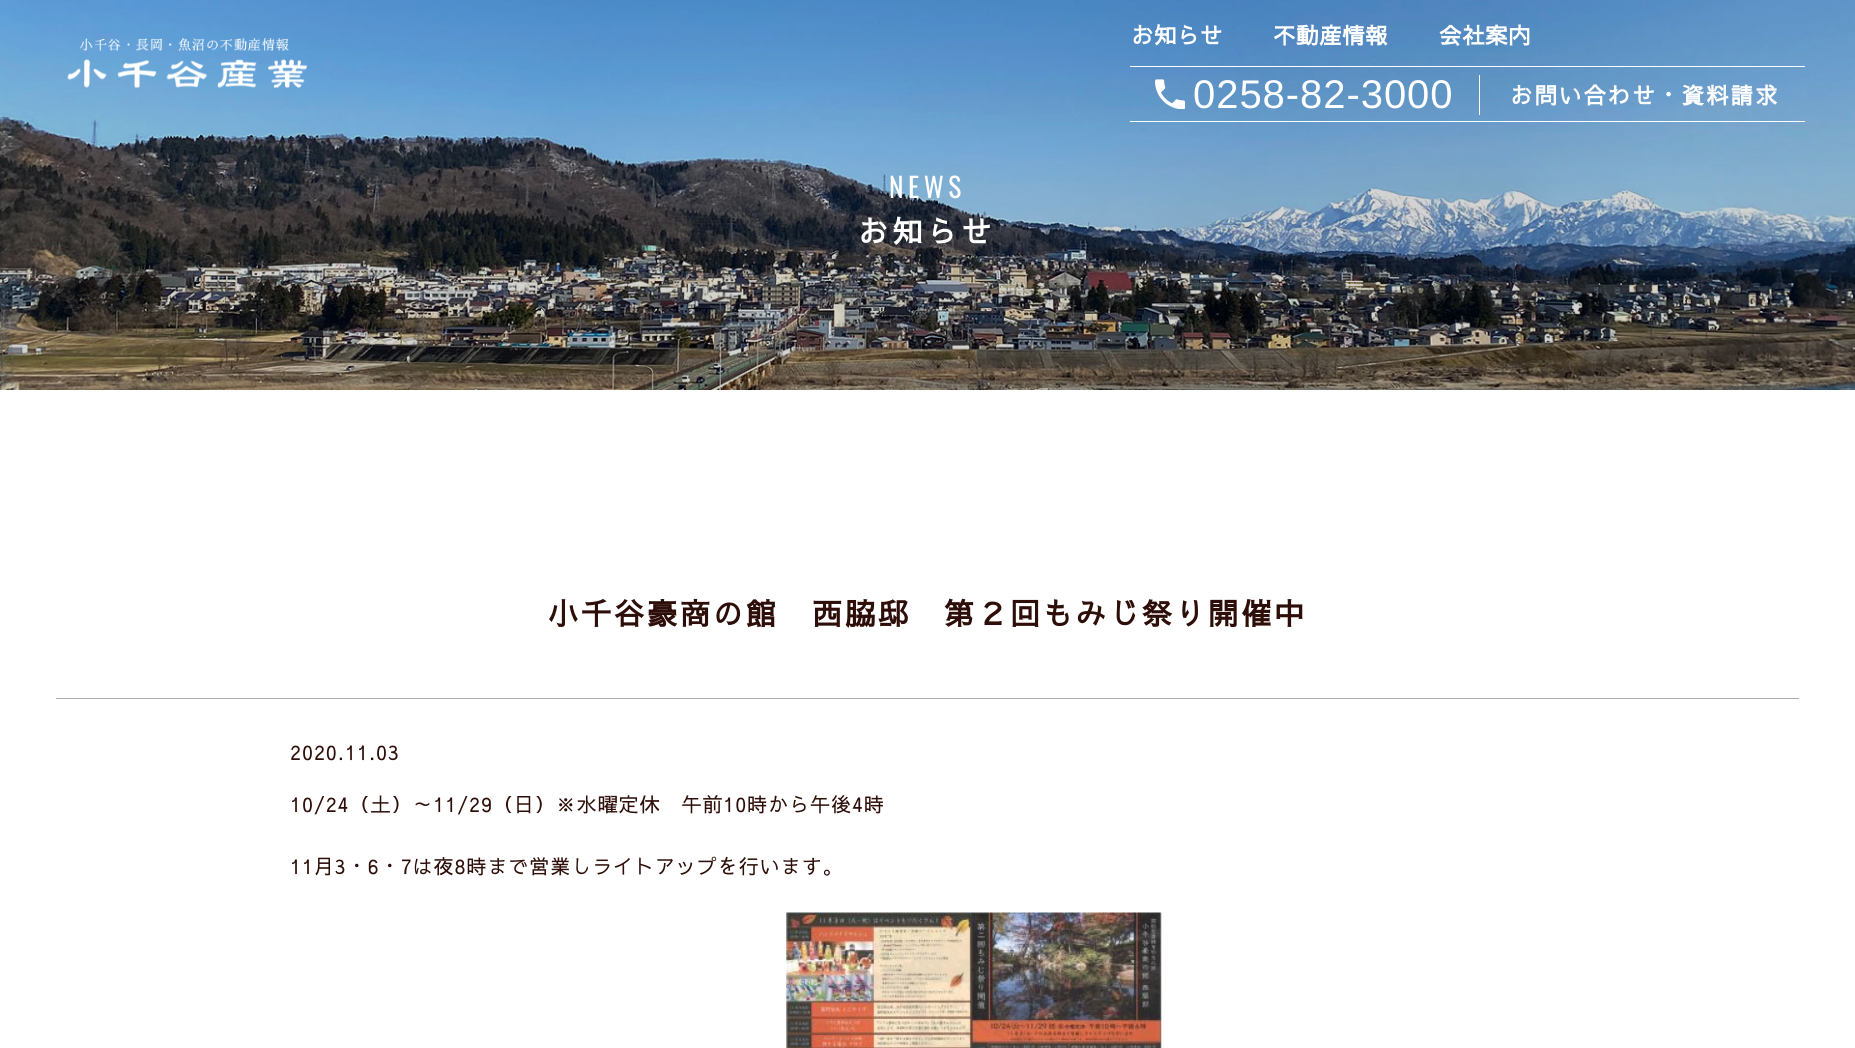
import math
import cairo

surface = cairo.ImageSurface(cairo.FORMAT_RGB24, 1855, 1048)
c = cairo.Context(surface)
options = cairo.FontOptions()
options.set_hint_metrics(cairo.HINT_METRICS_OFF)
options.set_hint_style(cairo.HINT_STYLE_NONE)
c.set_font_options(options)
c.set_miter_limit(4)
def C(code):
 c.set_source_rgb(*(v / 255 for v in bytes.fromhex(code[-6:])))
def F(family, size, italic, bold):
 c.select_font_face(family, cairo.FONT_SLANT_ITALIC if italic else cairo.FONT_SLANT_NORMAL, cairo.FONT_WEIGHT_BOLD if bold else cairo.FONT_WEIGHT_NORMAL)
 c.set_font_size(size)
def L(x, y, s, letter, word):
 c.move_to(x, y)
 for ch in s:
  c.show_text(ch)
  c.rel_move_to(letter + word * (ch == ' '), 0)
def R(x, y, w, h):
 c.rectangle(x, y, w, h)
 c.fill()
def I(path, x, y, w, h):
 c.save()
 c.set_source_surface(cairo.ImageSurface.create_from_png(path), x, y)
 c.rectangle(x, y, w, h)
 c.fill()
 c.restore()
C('ffffff')
c.paint()
I('3.png',0,0,1855,390)
I('1.png',67,38,241,50)
F('Sawarabi Gothic',22.5,0,1)
C('ffffff')
L(1131,44,'お知らせ',.5,0)
L(1273,44,'不動産情報',.5,0)
L(1439,44,'会社案内',.5,0)
R(1130,66,675,1)
R(1130,121,675,1)
I('2.png',1155,79,30,30)
R(1479,75,1,40)
F('Liberation Sans',40,0,0)
L(1193,108,'0258-82-3000',.95,0)
F('Sawarabi Gothic',22.5,0,1)
L(1510,104,'お問い合わせ・資料請求',2,0)
F('Oswald',27.5,0,0)
L(889,198,'NEWS',4.5,0)
F('Sawarabi Gothic',30,0,1)
L(858,243,'お知らせ',4.5,0)
C('acacac')
R(56,698,1743,1)
C('2e0e08')
L(548,625,'小千谷豪商の館　西脇邸　第２回もみじ祭り開催中',3,0)
F('Sawarabi Gothic',20,0,0)
L(290,760,'2020.11.03',.95,0)
L(290,812,'10/24（土）～11/29（日）※水曜定休　午前10時から午後4時',.95,0)
L(290,874,'11月3・6・7は夜8時まで営業しライトアップを行います。',.95,0)
I('4.png',786,912,376,136)
surface.write_to_png('o.png')
